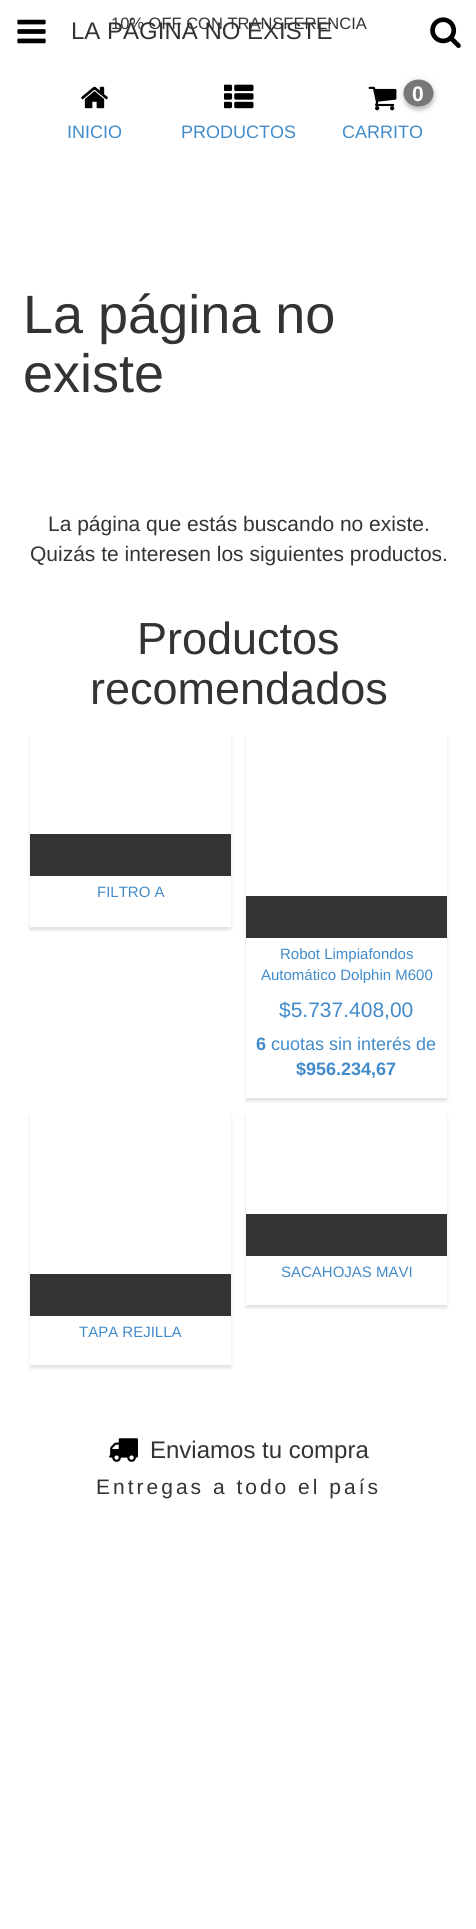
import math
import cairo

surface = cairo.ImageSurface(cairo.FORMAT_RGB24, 476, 1929)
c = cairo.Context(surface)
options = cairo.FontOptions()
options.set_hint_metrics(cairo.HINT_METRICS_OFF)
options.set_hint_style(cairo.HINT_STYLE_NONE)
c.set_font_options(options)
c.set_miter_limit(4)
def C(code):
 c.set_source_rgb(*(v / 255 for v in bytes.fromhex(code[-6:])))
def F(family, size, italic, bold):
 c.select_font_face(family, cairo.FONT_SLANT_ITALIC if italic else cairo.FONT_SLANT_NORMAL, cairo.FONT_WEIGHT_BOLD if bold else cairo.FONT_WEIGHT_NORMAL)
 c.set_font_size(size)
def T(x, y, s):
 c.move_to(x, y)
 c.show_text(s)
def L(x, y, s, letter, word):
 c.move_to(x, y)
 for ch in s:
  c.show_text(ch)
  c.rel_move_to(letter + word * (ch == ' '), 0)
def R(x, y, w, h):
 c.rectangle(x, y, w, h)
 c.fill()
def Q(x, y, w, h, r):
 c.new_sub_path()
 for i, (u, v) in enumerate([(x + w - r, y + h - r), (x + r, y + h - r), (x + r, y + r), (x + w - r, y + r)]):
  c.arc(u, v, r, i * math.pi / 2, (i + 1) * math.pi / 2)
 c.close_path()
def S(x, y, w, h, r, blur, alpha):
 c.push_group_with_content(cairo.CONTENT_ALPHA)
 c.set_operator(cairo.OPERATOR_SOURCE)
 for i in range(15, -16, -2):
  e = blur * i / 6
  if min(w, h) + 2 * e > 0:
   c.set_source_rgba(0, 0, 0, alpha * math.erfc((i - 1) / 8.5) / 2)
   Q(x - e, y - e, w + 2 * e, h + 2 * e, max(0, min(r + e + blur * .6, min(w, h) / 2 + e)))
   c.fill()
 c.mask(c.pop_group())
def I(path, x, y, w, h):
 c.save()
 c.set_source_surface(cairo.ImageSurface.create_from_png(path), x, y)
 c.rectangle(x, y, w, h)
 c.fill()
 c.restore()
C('ffffff')
c.paint()
F('Liberation Sans',24,0,0)
C('333333')
T(71,39,'LA PÁGINA NO EXISTE')
F('Liberation Sans',16.5,0,0)
T(111,29,'10% OFF CON TRANSFERENCIA')
I('1.png',17,19,29,25)
I('2.png',430,17,31,31)
I('3.png',81,86,27,23)
F('Liberation Sans',18,0,0)
C('428bca')
T(67,138,'INICIO')
I('4.png',224,84,30,25)
T(181,138,'PRODUCTOS')
I('5.png',368,86,29,25)
C('000000')
S(404,83,30,27,13.5,2,.2)
S(404,80,30,27,13.5,4,.1)
C('777777')
c.new_path()
c.move_to(418.5,79.5)
c.curve_to(427,79.5,433.5,85.5,433.5,93)
c.curve_to(433.5,100.5,427,106.5,418.5,106.5)
c.curve_to(410,106.5,403.5,100.5,403.5,93)
c.curve_to(403.5,85.5,410,79.5,418.5,79.5)
c.close_path()
c.fill()
F('Liberation Sans',21,0,1)
C('ffffff')
T(412,101,'0')
F('Liberation Sans',18,0,0)
C('428bca')
T(342,138,'CARRITO')
F('Liberation Sans',54,0,0)
C('333333')
T(23,333,'La página no')
T(23,392,'existe')
F('Liberation Sans',21,0,0)
T(48,531,'La página que estás buscando no existe.')
T(30,561,'Quizás te interesen los siguientes productos.')
F('Liberation Sans',45,0,0)
T(137,654,'Productos')
T(90,704,'recomendados')
c.save()
c.set_fill_rule(cairo.FILL_RULE_EVEN_ODD)
c.new_path()
c.move_to(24,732)
c.line_to(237,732)
c.line_to(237,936)
c.line_to(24,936)
c.close_path()
c.move_to(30,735)
c.line_to(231,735)
c.line_to(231,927)
c.line_to(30,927)
c.close_path()
c.clip()
C('323232')
S(30,738,201,192,0,1.5,.15)
c.restore()
R(30,834,201,42)
F('Liberation Sans',15,0,0)
C('428bca')
T(97,897,'FILTRO A')
c.save()
c.set_fill_rule(cairo.FILL_RULE_EVEN_ODD)
c.new_path()
c.move_to(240,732)
c.line_to(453,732)
c.line_to(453,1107)
c.line_to(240,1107)
c.close_path()
c.move_to(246,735)
c.line_to(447,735)
c.line_to(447,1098)
c.line_to(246,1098)
c.close_path()
c.clip()
C('323232')
S(246,738,201,363,0,1.5,.15)
c.restore()
C('333333')
R(246,896,201,42)
C('428bca')
T(280,959,'Robot Limpiafondos')
T(261,980,'Automático Dolphin M600')
F('Liberation Sans',21,0,0)
T(279,1017,'$5.737.408,00')
F('Liberation Sans',18,0,1)
T(256,1050,'6')
F('Liberation Sans',18,0,0)
T(271,1050,'cuotas sin interés de')
F('Liberation Sans',18,0,1)
T(296,1075,'$956.234,67')
c.save()
c.set_fill_rule(cairo.FILL_RULE_EVEN_ODD)
c.new_path()
c.move_to(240,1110)
c.line_to(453,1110)
c.line_to(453,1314)
c.line_to(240,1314)
c.close_path()
c.move_to(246,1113)
c.line_to(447,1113)
c.line_to(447,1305)
c.line_to(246,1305)
c.close_path()
c.clip()
C('323232')
S(246,1116,201,192,0,1.5,.15)
c.restore()
C('333333')
R(246,1214,201,42)
F('Liberation Sans',15,0,0)
C('428bca')
T(281,1277,'SACAHOJAS MAVI')
c.save()
c.set_fill_rule(cairo.FILL_RULE_EVEN_ODD)
c.new_path()
c.move_to(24,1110)
c.line_to(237,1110)
c.line_to(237,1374)
c.line_to(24,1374)
c.close_path()
c.move_to(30,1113)
c.line_to(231,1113)
c.line_to(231,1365)
c.line_to(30,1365)
c.close_path()
c.clip()
C('323232')
S(30,1116,201,252,0,1.5,.15)
c.restore()
C('333333')
R(30,1274,201,42)
C('428bca')
T(79,1337,'TAPA REJILLA')
I('6.png',109,1438,29,24)
F('Liberation Sans',24,0,0)
C('333333')
T(150,1458,'Enviamos tu compra')
F('Liberation Sans',21,0,0)
L(96,1494,'Entregas a todo el país',3,0)
surface.write_to_png('o.png')
